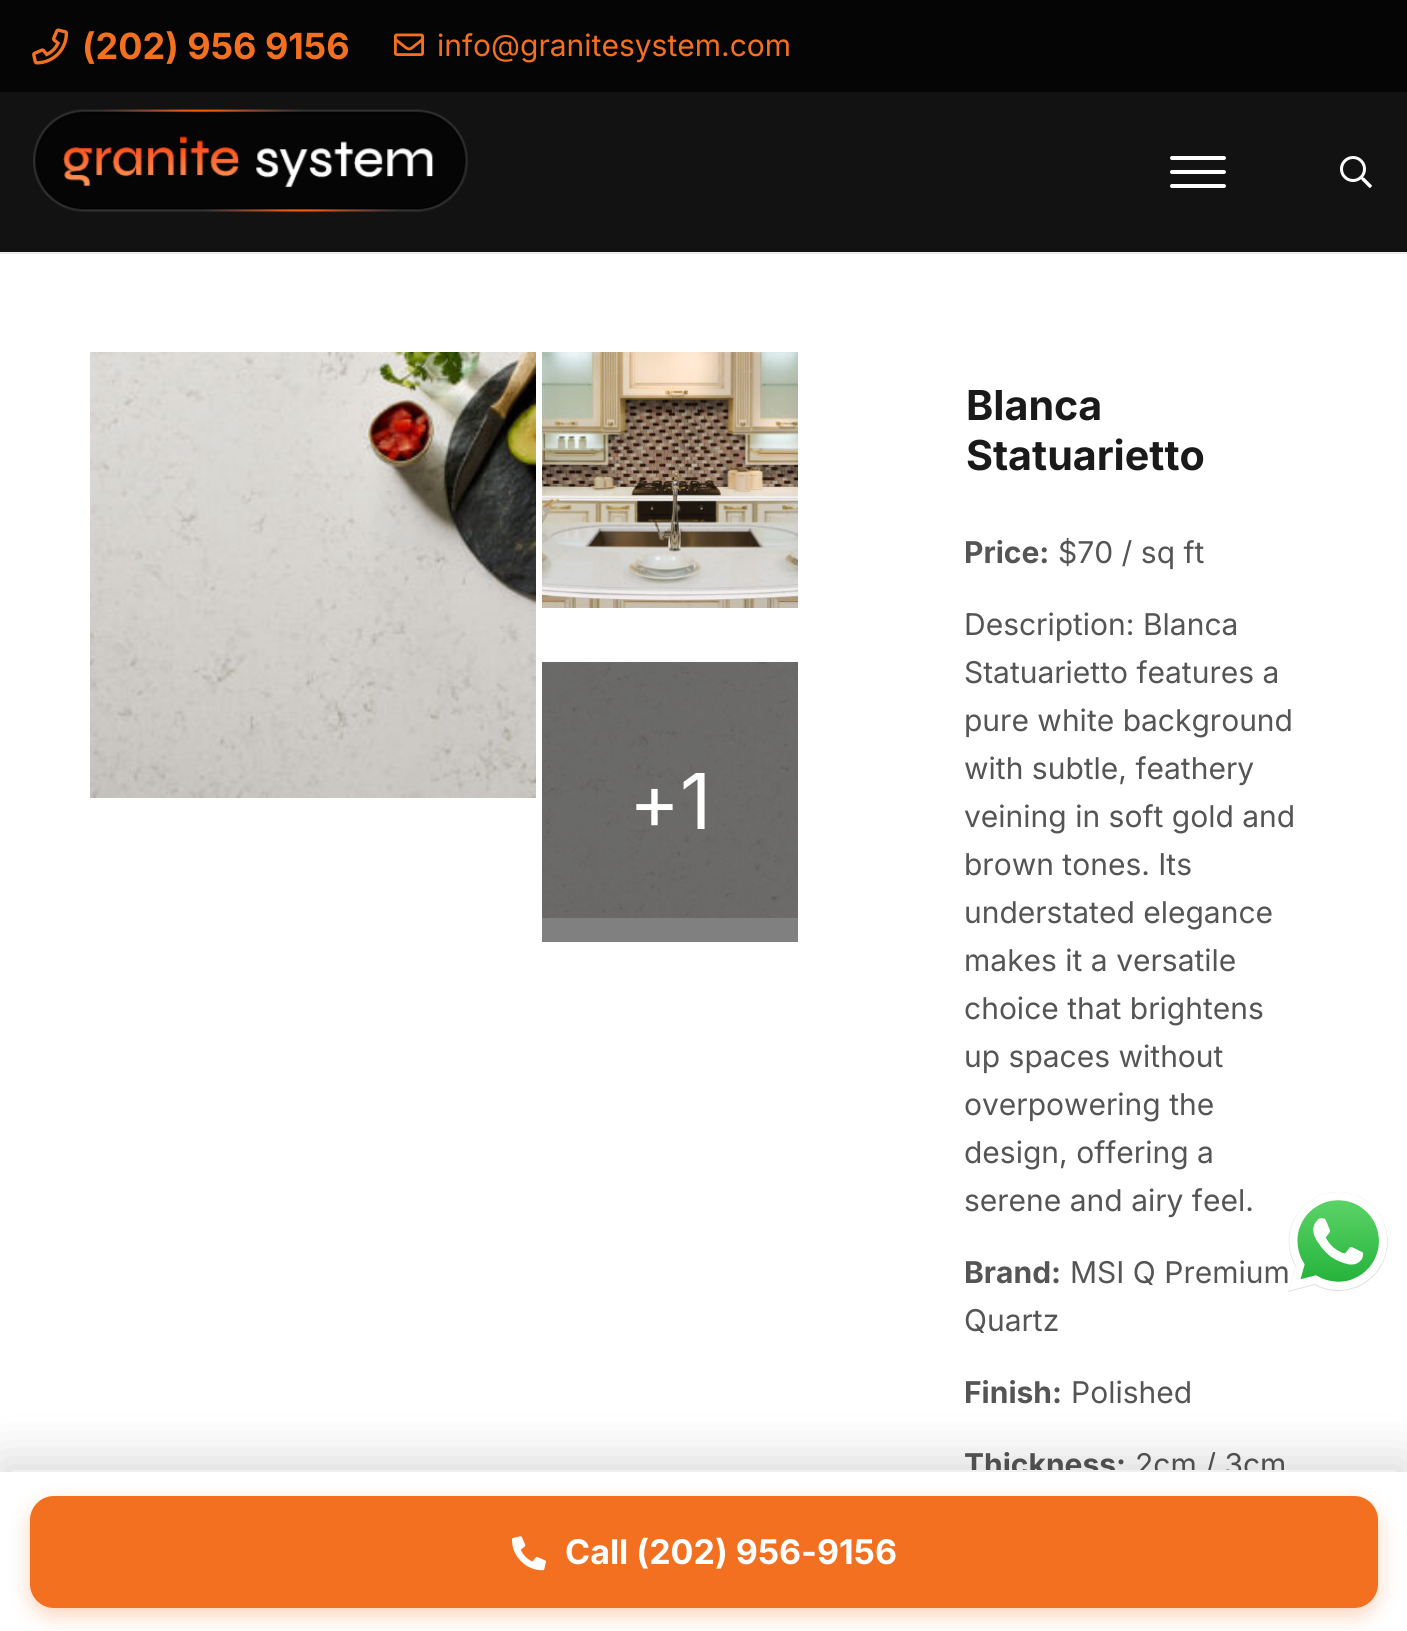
import math
import cairo

surface = cairo.ImageSurface(cairo.FORMAT_RGB24, 1407, 1631)
c = cairo.Context(surface)
options = cairo.FontOptions()
options.set_hint_metrics(cairo.HINT_METRICS_OFF)
options.set_hint_style(cairo.HINT_STYLE_NONE)
c.set_font_options(options)
c.set_miter_limit(4)
def C(code):
 c.set_source_rgb(*(v / 255 for v in bytes.fromhex(code[-6:])))
def F(family, size, italic, bold):
 c.select_font_face(family, cairo.FONT_SLANT_ITALIC if italic else cairo.FONT_SLANT_NORMAL, cairo.FONT_WEIGHT_BOLD if bold else cairo.FONT_WEIGHT_NORMAL)
 c.set_font_size(size)
def T(x, y, s):
 c.move_to(x, y)
 c.show_text(s)
def R(x, y, w, h):
 c.rectangle(x, y, w, h)
 c.fill()
def Q(x, y, w, h, r):
 c.new_sub_path()
 for i, (u, v) in enumerate([(x + w - r, y + h - r), (x + r, y + h - r), (x + r, y + r), (x + w - r, y + r)]):
  c.arc(u, v, r, i * math.pi / 2, (i + 1) * math.pi / 2)
 c.close_path()
def S(x, y, w, h, r, blur, alpha):
 c.push_group_with_content(cairo.CONTENT_ALPHA)
 c.set_operator(cairo.OPERATOR_SOURCE)
 for i in range(15, -16, -2):
  e = blur * i / 6
  if min(w, h) + 2 * e > 0:
   c.set_source_rgba(0, 0, 0, alpha * math.erfc((i - 1) / 8.5) / 2)
   Q(x - e, y - e, w + 2 * e, h + 2 * e, max(0, min(r + e + blur * .6, min(w, h) / 2 + e)))
   c.fill()
 c.mask(c.pop_group())
def I(path, x, y, w, h):
 c.save()
 c.set_source_surface(cairo.ImageSurface.create_from_png(path), x, y)
 c.rectangle(x, y, w, h)
 c.fill()
 c.restore()
C('ffffff')
c.paint()
C('808080')
R(542,918,256,24)
C('050505')
R(0,0,1407,92)
I('1.png',32,28,37,37)
F('Inter',36,0,1)
C('f37021')
T(82,59,'(202) 956 9156')
I('2.png',394,33,30,23)
F('Inter',30,0,0)
T(437,56,'info@granitesystem.com')
C('ebebeb')
R(0,252,1407,2)
C('121212')
R(0,92,1407,160)
I('3.png',33,109,435,104)
C('ffffff')
Q(1170,156,56,4,2)
c.fill()
Q(1170,170,56,4,2)
c.fill()
Q(1170,184,56,4,2)
c.fill()
I('4.png',1340,156,32,32)
I('5.png',90,352,446,446)
I('6.png',542,352,256,256)
I('7.png',542,662,256,256)
F('Inter',77,0,0)
T(629,829,'+1')
F('Inter',41.25,0,1)
C('1a1a1a')
T(966,420,'Blanca')
T(966,470,'Statuarietto')
F('Inter',30,0,1)
C('555555')
T(964,563,'Price:')
F('Inter',30,0,0)
T(1058,563,'$70 / sq ft')
T(964,635,'Description: Blanca')
T(964,683,'Statuarietto features a')
T(964,731,'pure white background')
T(964,779,'with subtle, feathery')
T(964,827,'veining in soft gold and')
T(964,875,'brown tones. Its')
T(964,923,'understated elegance')
T(964,971,'makes it a versatile')
T(964,1019,'choice that brightens')
T(964,1067,'up spaces without')
T(964,1115,'overpowering the')
T(964,1163,'design, offering a')
T(964,1211,'serene and airy feel.')
F('Inter',30,0,1)
T(964,1283,'Brand:')
F('Inter',30,0,0)
T(1070,1283,'MSI Q Premium')
T(964,1331,'Quartz')
F('Inter',30,0,1)
T(964,1403,'Finish:')
F('Inter',30,0,0)
T(1071,1403,'Polished')
F('Inter',30,0,1)
T(964,1475,'Thickness:')
F('Inter',30,0,0)
T(1135,1475,'2cm / 3cm')
I('8.png',1288,1192,100,100)
C('000000')
S(0,1460,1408,162,0,25,.15)
C('ffffff')
R(0,1472,1407,159)
C('f0f0f0')
R(12,1470,1384,2)
C('f37021')
S(30,1504,1348,112,24,10,.3)
C('f37021')
Q(30,1496,1348,112,24)
c.fill()
I('9.png',512,1536,34,35)
F('Inter',34,0,1)
C('ffffff')
T(565,1564,'Call (202) 956-9156')
surface.write_to_png('o.png')
